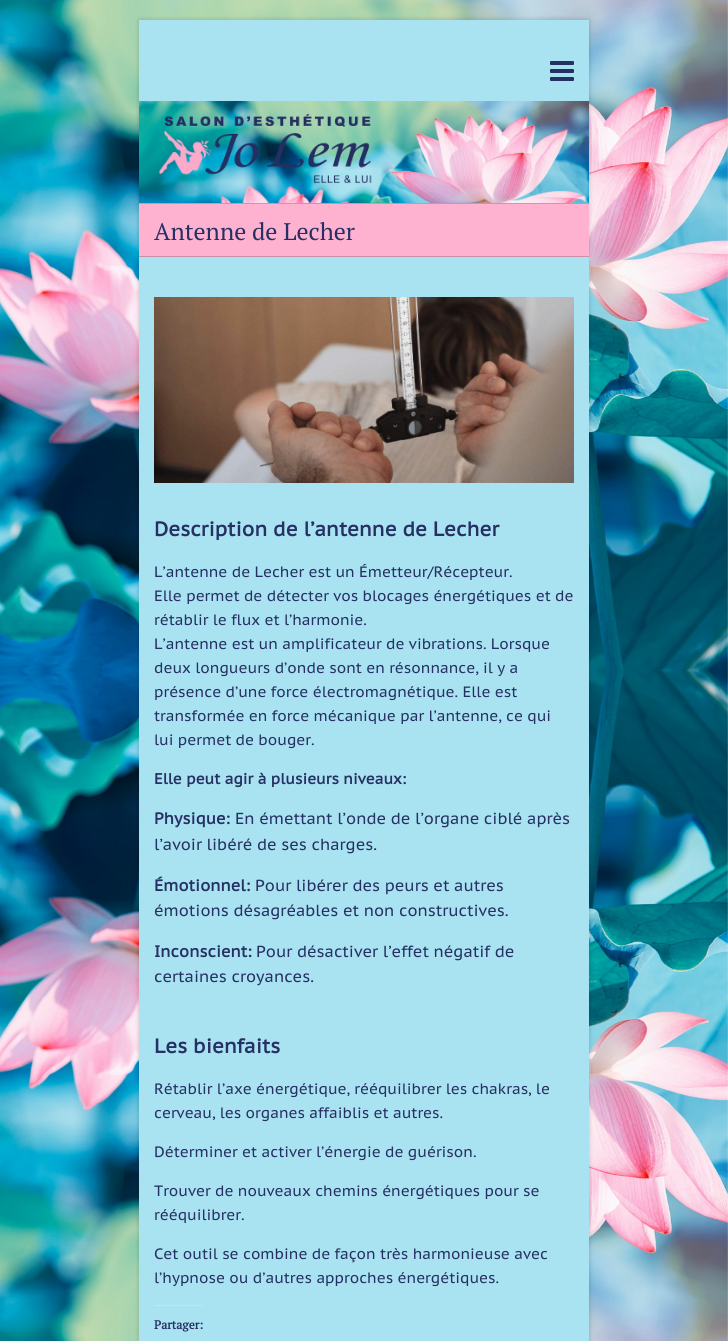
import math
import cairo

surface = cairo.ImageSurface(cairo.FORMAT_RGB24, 728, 1341)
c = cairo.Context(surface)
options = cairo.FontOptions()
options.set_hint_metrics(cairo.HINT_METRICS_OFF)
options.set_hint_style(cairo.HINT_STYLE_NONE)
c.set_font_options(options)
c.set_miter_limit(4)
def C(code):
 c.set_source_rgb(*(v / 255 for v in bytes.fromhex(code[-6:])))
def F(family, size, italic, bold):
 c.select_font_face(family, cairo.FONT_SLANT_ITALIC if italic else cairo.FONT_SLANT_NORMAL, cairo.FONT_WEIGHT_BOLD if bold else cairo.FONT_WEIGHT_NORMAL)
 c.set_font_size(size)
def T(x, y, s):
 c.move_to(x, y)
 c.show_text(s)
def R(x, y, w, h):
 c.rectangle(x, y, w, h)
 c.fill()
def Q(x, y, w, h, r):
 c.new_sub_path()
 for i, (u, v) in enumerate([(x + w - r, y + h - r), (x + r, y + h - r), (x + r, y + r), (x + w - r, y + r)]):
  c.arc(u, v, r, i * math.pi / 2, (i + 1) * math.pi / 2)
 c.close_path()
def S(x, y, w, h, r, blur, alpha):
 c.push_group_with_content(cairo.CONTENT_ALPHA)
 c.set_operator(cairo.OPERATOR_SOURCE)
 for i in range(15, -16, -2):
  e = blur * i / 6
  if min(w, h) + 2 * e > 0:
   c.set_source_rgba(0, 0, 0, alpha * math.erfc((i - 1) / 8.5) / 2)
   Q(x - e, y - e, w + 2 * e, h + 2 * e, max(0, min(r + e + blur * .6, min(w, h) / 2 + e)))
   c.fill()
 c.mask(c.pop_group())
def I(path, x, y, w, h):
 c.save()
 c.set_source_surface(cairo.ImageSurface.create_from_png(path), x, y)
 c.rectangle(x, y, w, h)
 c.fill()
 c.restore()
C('ffffff')
c.paint()
I('1.png',0,0,728,1341)
C('000000')
S(139,20,450,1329,0,2.5,.2)
C('a9e3f1')
R(139,20,450,1321)
I('2.png',550,61,24,20)
I('3.png',139,101,450,102)
C('87b6c1')
R(139,203,450,1)
C('feb2d0')
R(139,204,450,52)
C('cb8ea6')
R(139,256,450,1)
F('PT Serif',24,0,0)
C('263063')
T(154,240,'Antenne de Lecher')
I('4.png',154,297,420,186)
F('PT Sans Caption',20,0,1)
T(154,536,'Description de l’antenne de Lecher')
F('PT Sans Caption',15,0,0)
T(154,577,'L’antenne de Lecher est un Émetteur/Récepteur.')
T(154,601,'Elle permet de détecter vos blocages énergétiques et de')
T(154,625,'rétablir le flux et l’harmonie.')
T(154,649,'L’antenne est un amplificateur de vibrations. Lorsque')
T(154,673,'deux longueurs d’onde sont en résonnance, il y a')
T(154,697,'présence d’une force électromagnétique. Elle est')
T(154,721,'transformée en force mécanique par l’antenne, ce qui')
T(154,745,'lui permet de bouger.')
F('PT Sans Caption',15,0,1)
T(154,784,'Elle peut agir à plusieurs niveaux:')
F('PT Sans Caption',16,0,1)
T(154,824,'Physique:')
F('PT Sans Caption',16,0,0)
T(235,824,'En émettant l’onde de l’organe ciblé après')
T(154,850,'l’avoir libéré de ses charges.')
F('PT Sans Caption',16,0,1)
T(154,891,'Émotionnel:')
F('PT Sans Caption',16,0,0)
T(255,891,'Pour libérer des peurs et autres')
T(154,916,'émotions désagréables et non constructives.')
F('PT Sans Caption',16,0,1)
T(154,957,'Inconscient:')
F('PT Sans Caption',16,0,0)
T(256,957,'Pour désactiver l’effet négatif de')
T(154,982,'certaines croyances.')
F('PT Sans Caption',20,0,1)
T(154,1053,'Les bienfaits')
F('PT Sans Caption',15,0,0)
T(154,1094,'Rétablir l’axe énergétique, rééquilibrer les chakras, le')
T(154,1118,'cerveau, les organes affaiblis et autres.')
T(154,1157,'Déterminer et activer l’énergie de guérison.')
T(154,1196,'Trouver de nouveaux chemins énergétiques pour se')
T(154,1220,'rééquilibrer.')
T(154,1259,'Cet outil se combine de façon très harmonieuse avec')
T(154,1283,'l’hypnose ou d’autres approches énergétiques.')
C('dcdcde')
R(154,1305,49,1)
F('PT Serif',12,0,1)
C('263063')
T(154,1329,'Partager:')
surface.write_to_png('o.png')
